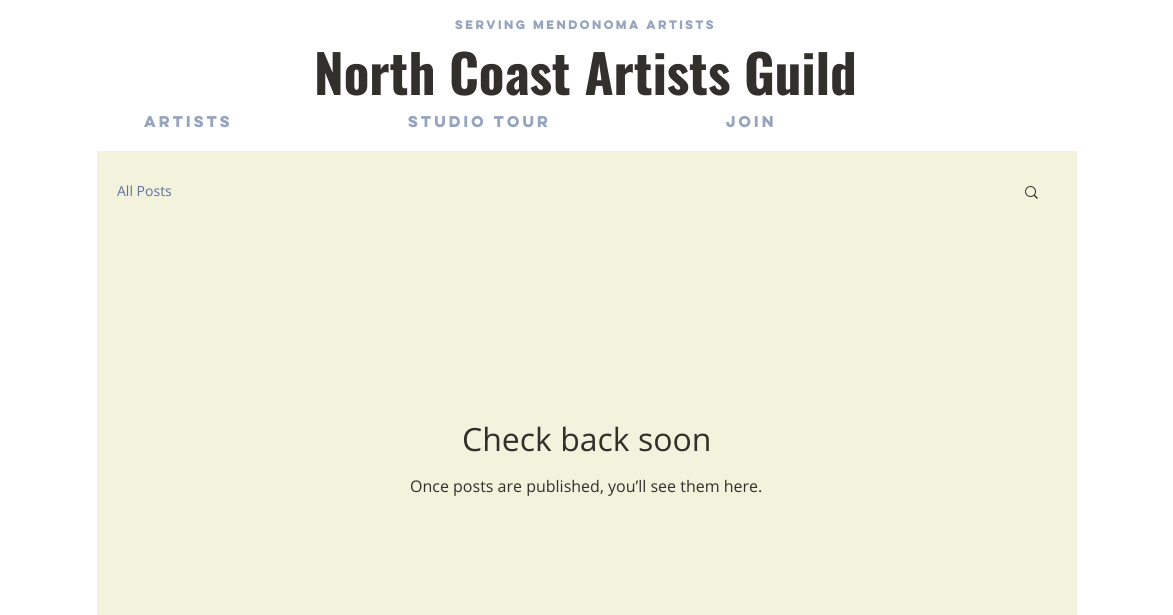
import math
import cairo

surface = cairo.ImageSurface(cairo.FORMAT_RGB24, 1173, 615)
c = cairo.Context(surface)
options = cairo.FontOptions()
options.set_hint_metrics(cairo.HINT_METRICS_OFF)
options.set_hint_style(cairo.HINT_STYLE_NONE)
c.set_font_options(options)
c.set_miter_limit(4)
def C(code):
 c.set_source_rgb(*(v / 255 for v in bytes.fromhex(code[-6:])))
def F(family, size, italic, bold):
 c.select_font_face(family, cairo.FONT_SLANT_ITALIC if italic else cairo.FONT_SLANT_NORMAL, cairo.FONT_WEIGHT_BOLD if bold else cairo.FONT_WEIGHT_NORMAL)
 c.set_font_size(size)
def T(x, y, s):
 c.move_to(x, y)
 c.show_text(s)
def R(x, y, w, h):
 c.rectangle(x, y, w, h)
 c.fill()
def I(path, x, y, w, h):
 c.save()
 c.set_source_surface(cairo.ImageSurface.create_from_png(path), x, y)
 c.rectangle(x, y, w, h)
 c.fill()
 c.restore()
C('ffffff')
c.paint()
F('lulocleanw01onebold',11,0,1)
C('96a4be')
T(455,29,'Serving Mendonoma Artists')
F('Oswald',53,0,1)
C('31302c')
T(314,95,'North Coast Artists Guild')
F('lulocleanw01onebold',14,0,1)
C('96a4be')
T(144,127,'Artists')
T(408,127,'Studio Tour')
T(726,127,'Join')
C('f3f2dc')
R(97,151,980,464)
F('Open Sans',14,0,0)
C('5c739d')
T(117,196,'All Posts')
I('1.png',1025,186,13,13)
F('Open Sans',32,0,0)
C('31302c')
T(462,451,'Check back soon')
F('Open Sans',16,0,0)
T(410,492,'Once posts are published, you’ll see them here.')
surface.write_to_png('o.png')
